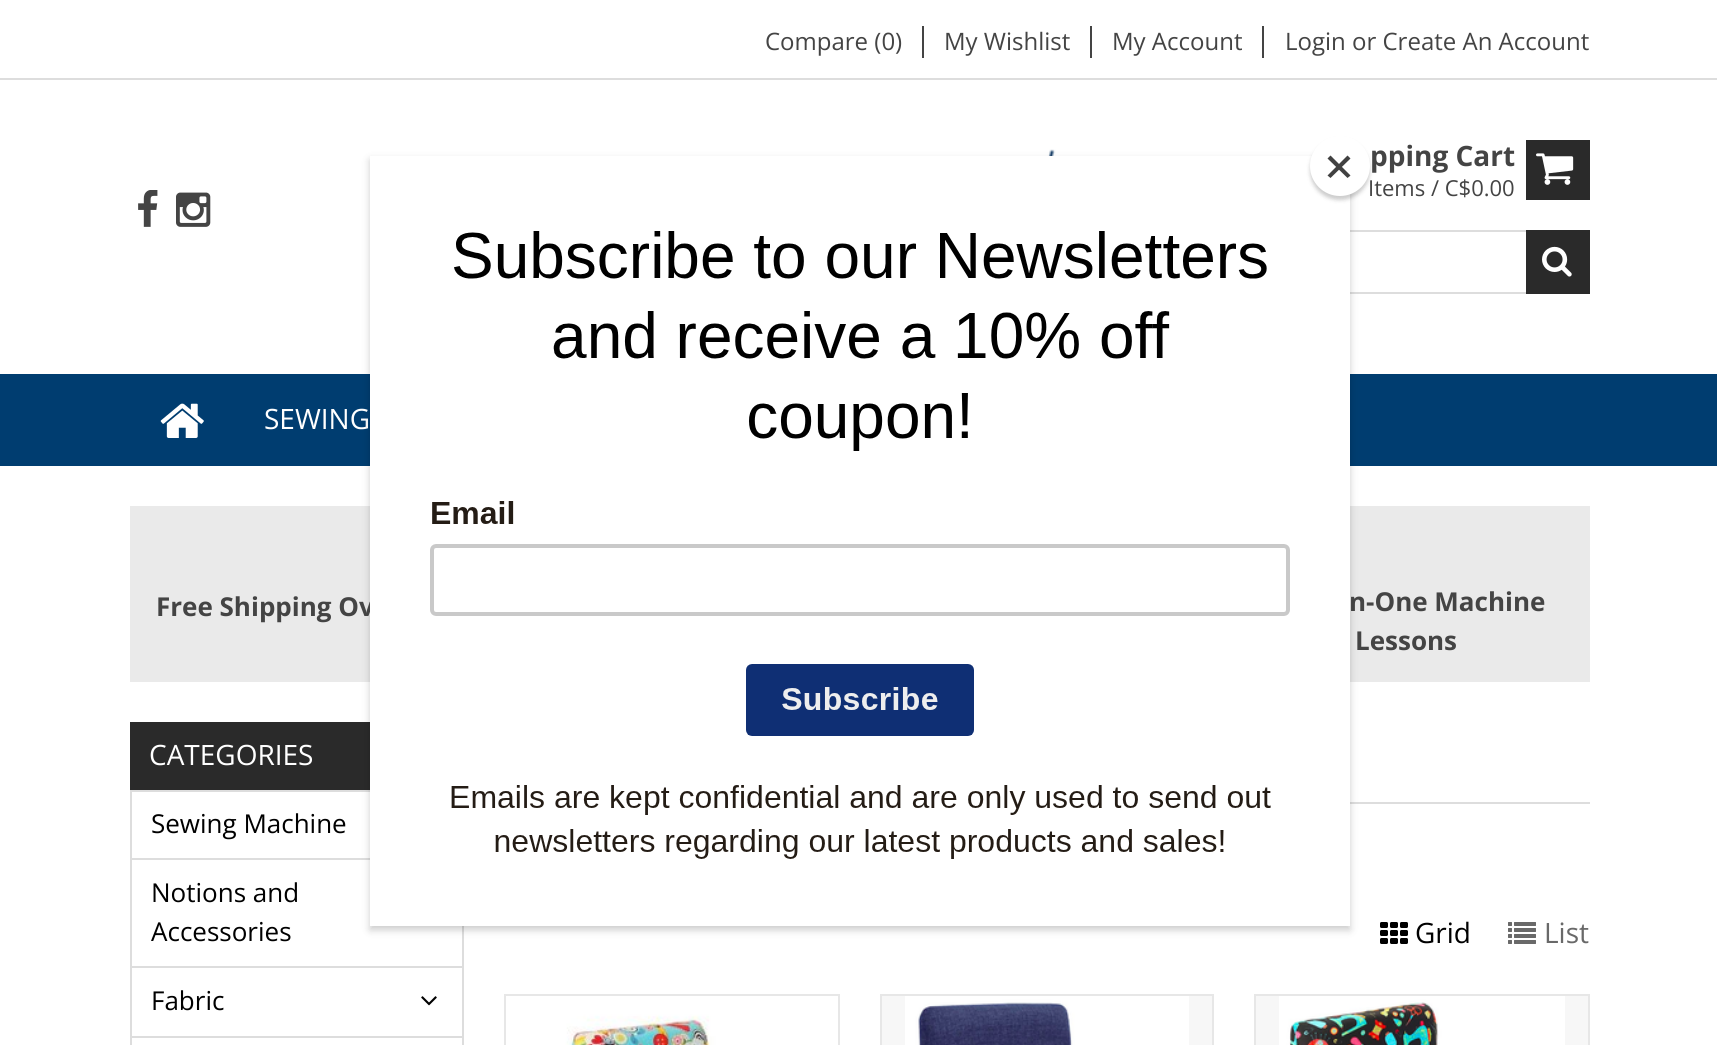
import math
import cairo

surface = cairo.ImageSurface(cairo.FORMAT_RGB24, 1717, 1045)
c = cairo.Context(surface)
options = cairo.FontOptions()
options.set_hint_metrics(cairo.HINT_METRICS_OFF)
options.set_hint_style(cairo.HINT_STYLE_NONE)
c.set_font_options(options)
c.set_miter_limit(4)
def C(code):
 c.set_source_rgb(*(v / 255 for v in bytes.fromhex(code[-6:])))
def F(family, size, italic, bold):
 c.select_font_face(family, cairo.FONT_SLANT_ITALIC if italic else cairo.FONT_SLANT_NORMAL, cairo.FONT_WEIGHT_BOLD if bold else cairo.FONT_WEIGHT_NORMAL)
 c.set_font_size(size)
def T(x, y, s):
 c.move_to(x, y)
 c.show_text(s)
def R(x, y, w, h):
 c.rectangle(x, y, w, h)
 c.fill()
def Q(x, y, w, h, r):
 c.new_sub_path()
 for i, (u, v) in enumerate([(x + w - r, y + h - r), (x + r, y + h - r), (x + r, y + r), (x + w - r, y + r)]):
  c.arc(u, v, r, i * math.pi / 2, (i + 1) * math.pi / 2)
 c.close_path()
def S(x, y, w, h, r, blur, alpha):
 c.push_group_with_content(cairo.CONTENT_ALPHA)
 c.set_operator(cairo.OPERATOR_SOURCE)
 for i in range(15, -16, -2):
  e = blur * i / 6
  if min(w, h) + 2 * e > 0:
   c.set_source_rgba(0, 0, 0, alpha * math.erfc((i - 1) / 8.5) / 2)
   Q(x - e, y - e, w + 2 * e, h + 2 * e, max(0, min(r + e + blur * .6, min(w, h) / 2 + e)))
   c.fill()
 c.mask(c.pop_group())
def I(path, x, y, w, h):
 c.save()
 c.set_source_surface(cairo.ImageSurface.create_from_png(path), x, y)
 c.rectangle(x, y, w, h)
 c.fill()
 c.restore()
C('ffffff')
c.paint()
C('dddddd')
R(0,78,1717,2)
C('444444')
R(922,26,2,32)
F('Open Sans',24,0,0)
T(765,50,'Compare (0)')
R(1090,26,2,32)
T(944,50,'My Wishlist')
R(1262,26,2,32)
T(1112,50,'My Account')
T(1285,50,'Login or Create An Account')
I('1.png',526,149,674,7)
F('Open Sans',28,0,1)
T(1370,166,'pping Cart')
F('Open Sans',22,0,0)
T(1368,196,'Items / C$0.00')
C('2a2a2a')
R(1526,140,64,60)
I('2.png',1536,153,38,32)
c.rectangle(1255,231,334,62)
C('dddddd')
c.stroke()
C('2a2a2a')
R(1526,230,64,64)
I('3.png',1542,246,30,31)
I('4.png',138,190,20,37)
I('5.png',176,192,35,35)
C('003d70')
R(0,374,1717,92)
I('6.png',160,403,44,35)
F('Open Sans',28,0,0)
C('ffffff')
T(264,429,'SEWING')
C('eaeaea')
R(130,506,1460,176)
C('2a2a2a')
R(130,722,240,68)
c.rectangle(131,791,332,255)
C('dddddd')
c.stroke()
R(132,858,238,2)
R(1350,802,240,2)
C('000000')
S(370,160,980,770,0,4,.2)
F('Open Sans',26,0,1)
C('444444')
T(156,616,'Free Shipping Ov')
I('7.png',370,156,980,770)
C('000000')
S(1310,140,60,60,30,2,.2)
C('ffffff')
c.arc(1340,166,30,0,2 * math.pi)
c.fill()
C('414141')
c.new_path()
c.move_to(1347.5,155.5)
c.line_to(1350.5,158.5)
c.line_to(1330.5,178)
c.line_to(1327.5,175.5)
c.close_path()
c.fill()
c.new_path()
c.move_to(1327.5,158.5)
c.line_to(1330.5,155.5)
c.line_to(1350.5,175.5)
c.line_to(1347.5,178)
c.close_path()
c.fill()
C('444444')
T(1349,611,'n-One Machine')
T(1355,650,'Lessons')
F('Open Sans',28,0,0)
C('ffffff')
T(149,765,'CATEGORIES')
F('Open Sans',26,0,0)
C('000000')
T(151,833,'Sewing Machine')
C('dddddd')
R(132,966,330,2)
C('000000')
T(151,902,'Notions and')
T(151,941,'Accessories')
C('dddddd')
R(132,1036,330,2)
C('000000')
T(151,1010,'Fabric')
I('8.png',421,996,16,10)
I('9.png',1380,922,28,22)
F('Open Sans',28,0,0)
T(1415,943,'Grid')
I('10.png',1508,922,28,22)
C('696969')
T(1544,943,'List')
C('e7e7e7')
R(504,994,336,2)
R(838,994,2,51)
R(504,994,2,51)
I('11.png',506,996,332,49)
R(880,994,334,2)
R(1212,994,2,51)
R(880,994,2,51)
C('f7f7f7')
R(882,996,330,49)
I('12.png',905,996,284,49)
C('e7e7e7')
R(1254,994,336,2)
R(1588,994,2,51)
R(1254,994,2,51)
C('f7f7f7')
R(1256,996,332,49)
I('13.png',1279,996,286,49)
surface.write_to_png('o.png')
